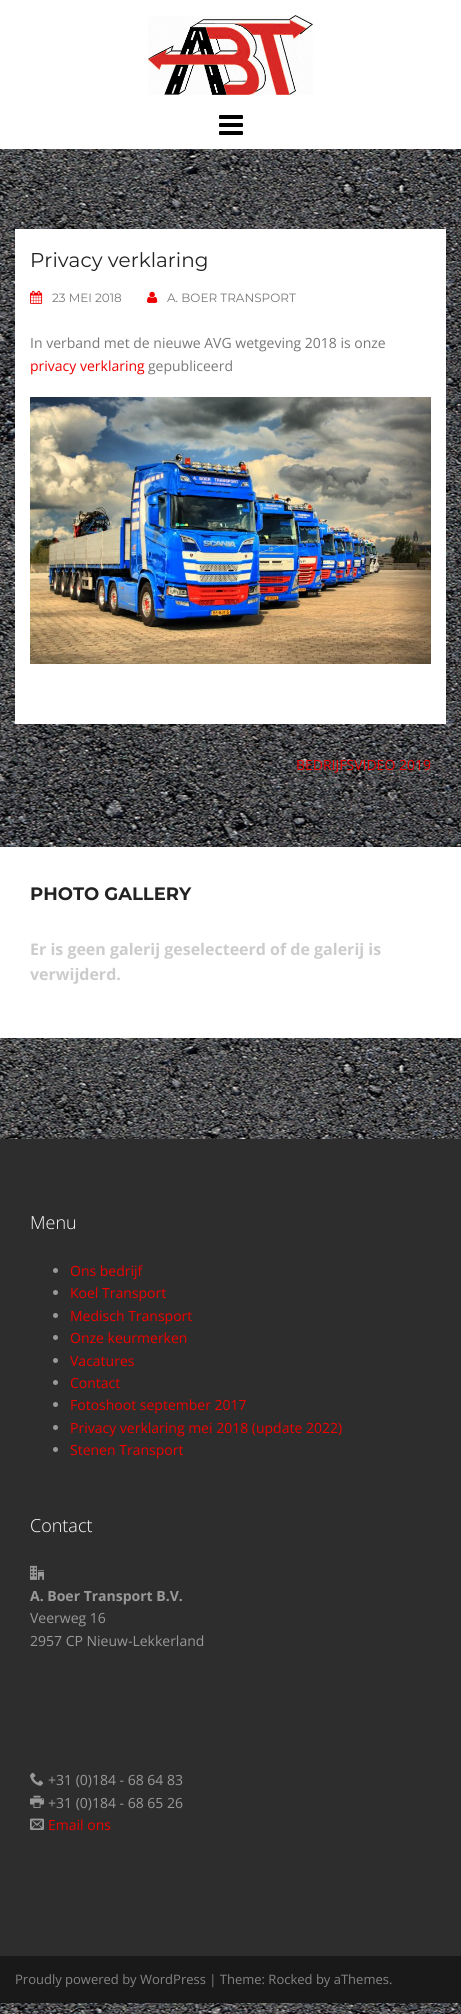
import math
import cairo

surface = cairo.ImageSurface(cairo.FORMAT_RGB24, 461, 2014)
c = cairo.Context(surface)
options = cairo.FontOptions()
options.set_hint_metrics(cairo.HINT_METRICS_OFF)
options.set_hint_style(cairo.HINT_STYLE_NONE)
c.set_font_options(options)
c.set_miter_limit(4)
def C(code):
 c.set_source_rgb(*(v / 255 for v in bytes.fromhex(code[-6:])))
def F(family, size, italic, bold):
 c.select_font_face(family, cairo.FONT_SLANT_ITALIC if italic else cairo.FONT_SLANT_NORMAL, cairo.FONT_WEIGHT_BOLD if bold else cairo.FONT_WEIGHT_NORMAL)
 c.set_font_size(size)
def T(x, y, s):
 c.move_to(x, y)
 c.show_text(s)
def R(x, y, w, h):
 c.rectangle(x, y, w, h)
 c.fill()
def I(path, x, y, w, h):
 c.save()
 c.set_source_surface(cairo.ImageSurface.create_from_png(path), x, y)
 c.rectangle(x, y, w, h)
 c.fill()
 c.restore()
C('ffffff')
c.paint()
I('1.png',0,149,461,1865)
I('2.png',148,15,165,80)
I('3.png',219,115,24,20)
C('ffffff')
R(15,229,431,495)
F('Montserrat',20,0,0)
C('222222')
T(30,267,'Privacy verklaring')
I('4.png',30,290,13,14)
F('Montserrat',12,0,0)
C('777777')
T(52,302,'23 MEI 2018')
I('5.png',147,291,11,12)
T(167,302,'A. BOER TRANSPORT')
F('Open Sans',14,0,0)
T(30,348,'In verband met de nieuwe AVG wetgeving 2018 is onze')
C('ee0000')
T(30,371,'privacy verklaring')
C('777777')
T(148,371,'gepubliceerd')
I('6.png',30,397,401,267)
C('ee0000')
T(296,770,'BEDRIJFSVIDEO 2019')
C('ffffff')
R(0,847,461,191)
F('Montserrat',18,0,1)
C('222222')
T(30,900,'PHOTO GALLERY')
F('Open Sans',16,0,1)
C('cccccc')
T(30,955,'Er is geen galerij geselecteerd of de galerij is')
T(30,980,'verwijderd.')
C('2d2d2d')
R(0,1139,461,817)
F('Open Sans Light',18,0,0)
C('ffffff')
T(30,1229,'Menu')
C('999999')
c.new_path()
c.arc(55.5,1270.5,2.5,0,2 * math.pi)
c.fill()
F('Open Sans',14,0,0)
C('ee0000')
T(70,1276,'Ons bedrijf')
C('999999')
c.new_path()
c.arc(55.5,1292.5,2.5,0,2 * math.pi)
c.fill()
C('ee0000')
T(70,1298,'Koel Transport')
C('999999')
c.new_path()
c.arc(55.5,1315.5,2.5,0,2 * math.pi)
c.fill()
C('ee0000')
T(70,1321,'Medisch Transport')
C('999999')
c.new_path()
c.arc(55.5,1337.5,2.5,0,2 * math.pi)
c.fill()
C('ee0000')
T(70,1343,'Onze keurmerken')
C('999999')
c.new_path()
c.arc(55.5,1360.5,2.5,0,2 * math.pi)
c.fill()
C('ee0000')
T(70,1366,'Vacatures')
C('999999')
c.new_path()
c.arc(55.5,1382.5,2.5,0,2 * math.pi)
c.fill()
C('ee0000')
T(70,1388,'Contact')
C('999999')
c.new_path()
c.arc(55.5,1404.5,2.5,0,2 * math.pi)
c.fill()
C('ee0000')
T(70,1410,'Fotoshoot september 2017')
C('999999')
c.new_path()
c.arc(55.5,1427.5,2.5,0,2 * math.pi)
c.fill()
C('ee0000')
T(70,1433,'Privacy verklaring mei 2018 (update 2022)')
C('999999')
c.new_path()
c.arc(55.5,1449.5,2.5,0,2 * math.pi)
c.fill()
C('ee0000')
T(70,1455,'Stenen Transport')
F('Open Sans Light',18,0,0)
C('ffffff')
T(30,1532,'Contact')
I('7.png',30,1565,14,15)
F('Open Sans',14,0,1)
C('999999')
T(30,1601,'A. Boer Transport B.V.')
F('Open Sans',14,0,0)
T(30,1623,'Veerweg 16')
T(30,1646,'2957 CP Nieuw-Lekkerland')
I('8.png',30,1772,14,14)
T(48,1785,'+31 (0)184 - 68 64 83')
I('9.png',30,1795,14,13)
T(48,1808,'+31 (0)184 - 68 65 26')
I('10.png',30,1818,14,12)
C('ee0000')
T(48,1830,'Email ons')
C('191919')
R(0,1956,461,47)
F('Open Sans',13,0,0)
C('838383')
T(15,1984,'Proudly powered by WordPress | Theme: Rocked by aThemes.')
surface.write_to_png('o.png')
